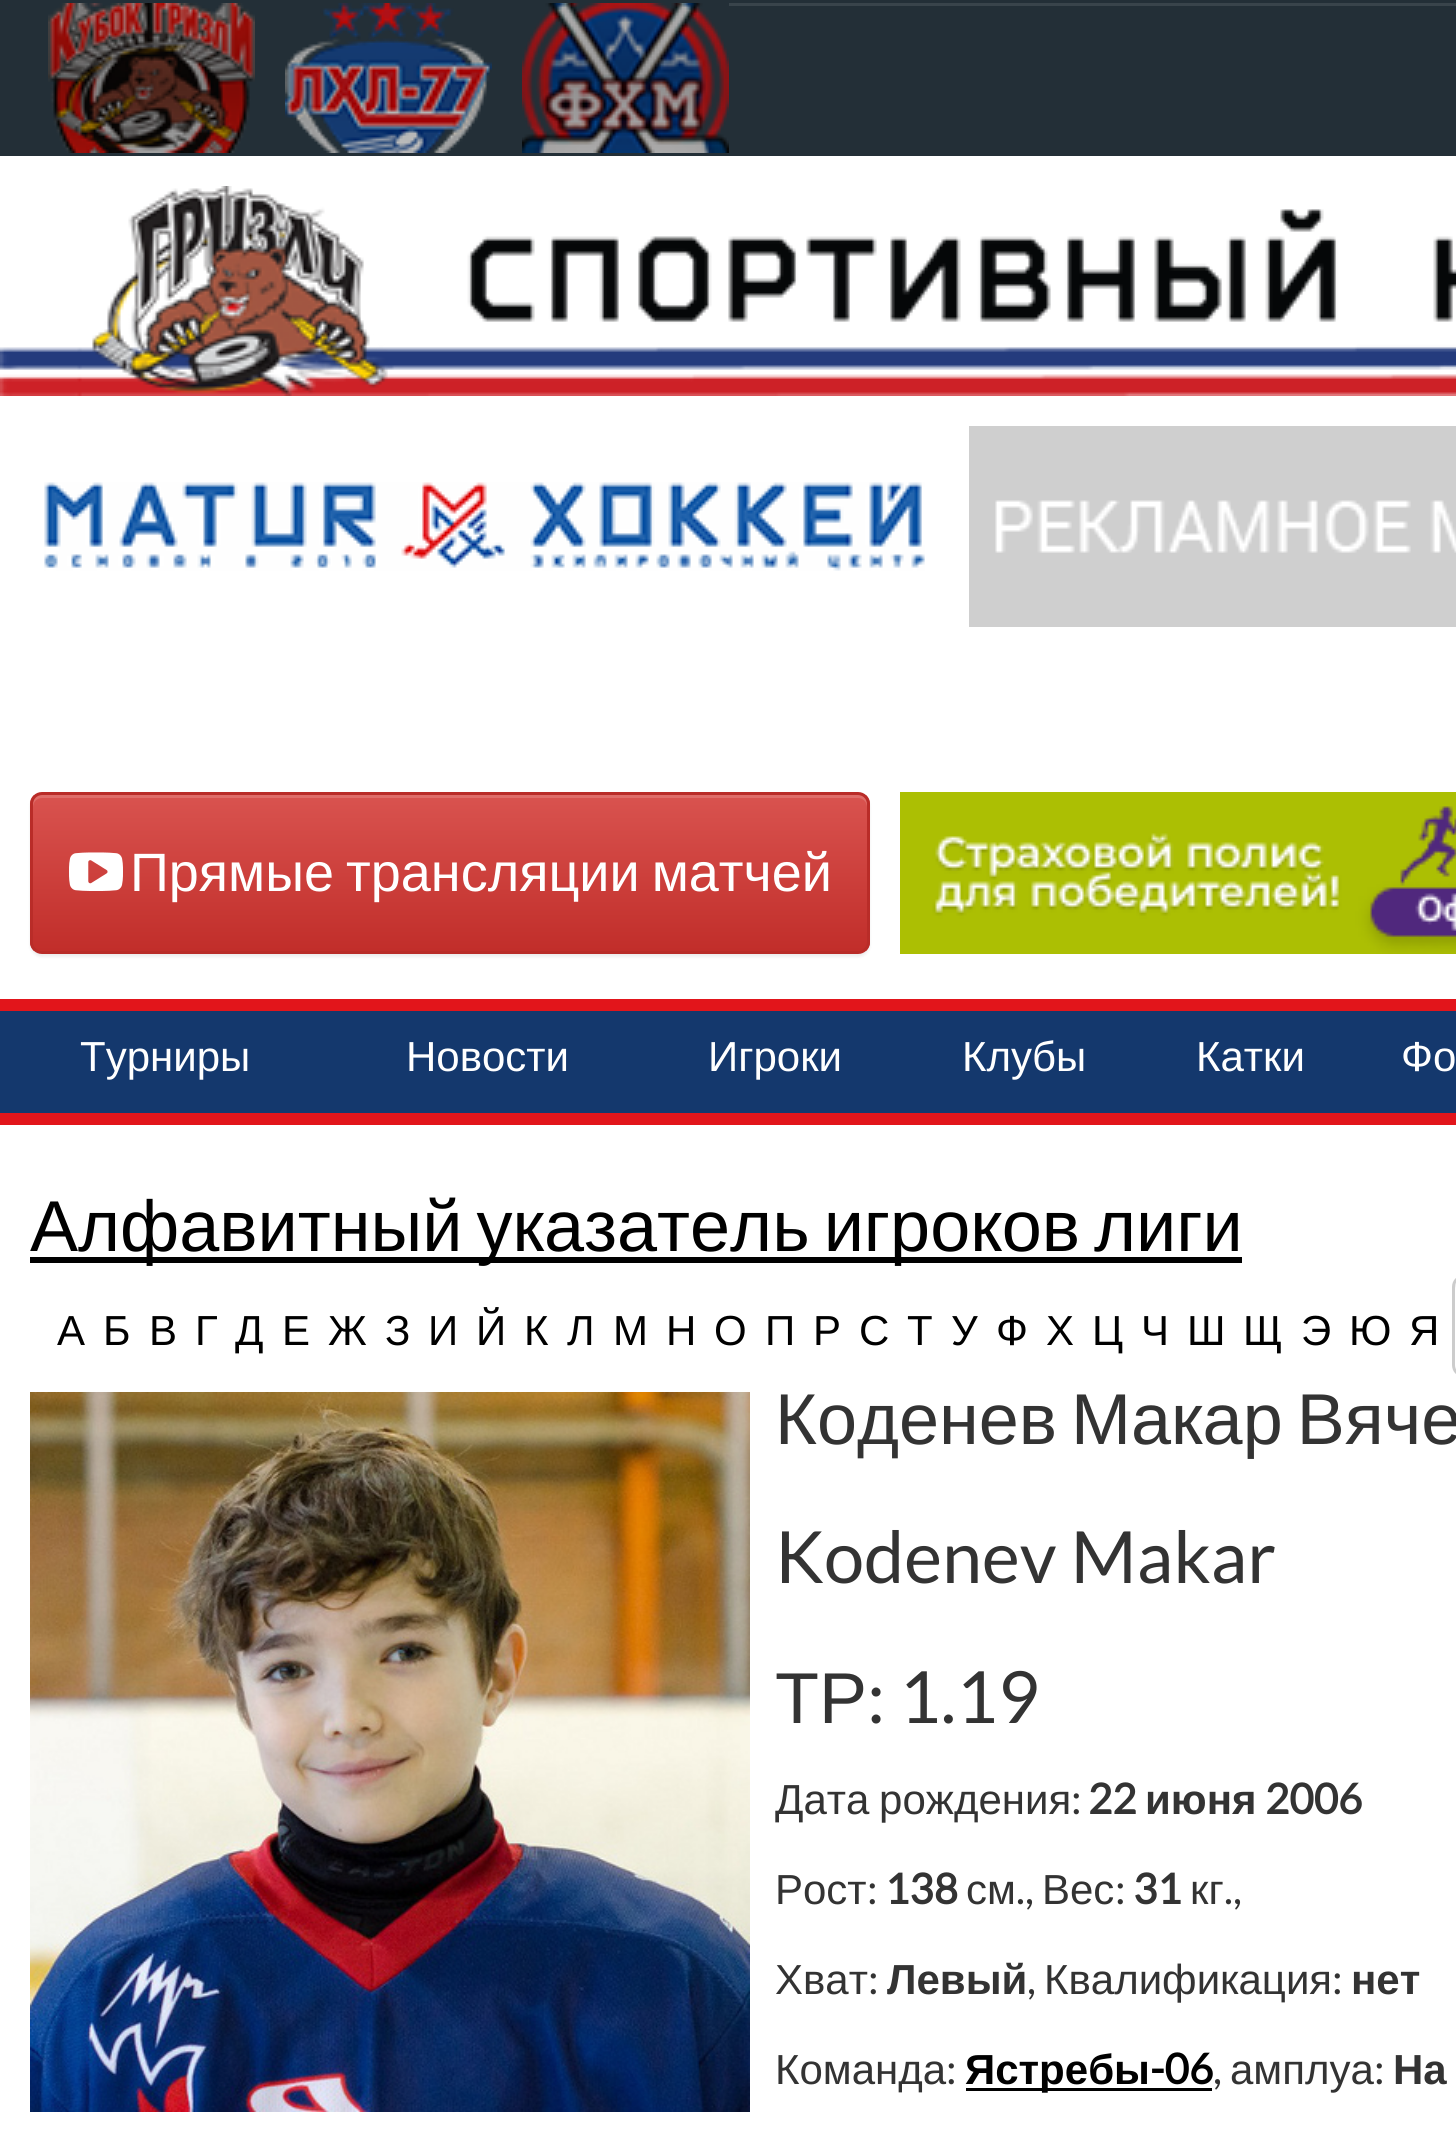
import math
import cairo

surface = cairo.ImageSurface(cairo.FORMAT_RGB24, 1456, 2130)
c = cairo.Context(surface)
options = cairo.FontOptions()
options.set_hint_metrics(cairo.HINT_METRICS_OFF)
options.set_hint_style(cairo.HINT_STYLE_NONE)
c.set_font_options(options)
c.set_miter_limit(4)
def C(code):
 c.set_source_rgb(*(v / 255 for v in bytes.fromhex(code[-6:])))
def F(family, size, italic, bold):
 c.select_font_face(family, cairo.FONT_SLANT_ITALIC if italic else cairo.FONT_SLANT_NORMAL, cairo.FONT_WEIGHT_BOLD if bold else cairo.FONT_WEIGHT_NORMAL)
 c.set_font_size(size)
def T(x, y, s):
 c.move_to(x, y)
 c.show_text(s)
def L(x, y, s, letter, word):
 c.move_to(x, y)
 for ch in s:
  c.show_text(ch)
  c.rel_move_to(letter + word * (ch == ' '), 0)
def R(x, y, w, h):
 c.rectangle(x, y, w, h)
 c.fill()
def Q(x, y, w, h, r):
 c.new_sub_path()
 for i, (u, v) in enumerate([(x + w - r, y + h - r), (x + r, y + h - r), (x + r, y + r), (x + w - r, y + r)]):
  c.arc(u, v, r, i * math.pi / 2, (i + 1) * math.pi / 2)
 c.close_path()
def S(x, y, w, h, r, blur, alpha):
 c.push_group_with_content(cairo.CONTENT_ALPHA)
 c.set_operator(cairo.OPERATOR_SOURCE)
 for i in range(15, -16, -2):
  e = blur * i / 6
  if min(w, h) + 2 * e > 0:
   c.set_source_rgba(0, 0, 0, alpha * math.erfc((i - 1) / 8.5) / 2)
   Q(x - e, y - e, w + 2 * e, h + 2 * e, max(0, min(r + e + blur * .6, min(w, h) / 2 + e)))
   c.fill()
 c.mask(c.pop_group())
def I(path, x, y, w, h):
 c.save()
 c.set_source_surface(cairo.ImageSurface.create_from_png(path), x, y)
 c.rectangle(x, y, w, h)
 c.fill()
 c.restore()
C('ffffff')
c.paint()
C('232f37')
R(0,0,1456,156)
I('1.png',48,3,207,150)
I('2.png',285,3,207,150)
I('3.png',522,3,207,150)
C('39444b')
R(729,3,727,3)
I('4.png',0,186,1456,210)
I('5.png',44,482,881,89)
I('6.png',969,426,487,201)
C('000000')
S(30,795,840,162,12,1.5,.07)
c.save()
Q(30,792,840,162,12)
c.clip()
gradient = cairo.LinearGradient(450,795,450,951)
gradient.add_color_stop_rgba(0,0.851,0.325,0.31,1)
gradient.add_color_stop_rgba(1,0.757,0.18,0.165,1)
c.set_source(gradient)
R(30,795,840,156)
c.restore()
C('df6d69')
c.new_path()
c.move_to(42,798)
c.line_to(858,798)
c.curve_to(863,798,867,802,867,807)
c.line_to(867,804)
c.curve_to(867,799,863,795,858,795)
c.line_to(42,795)
c.curve_to(37,795,33,799,33,804)
c.line_to(33,807)
c.curve_to(33,802,37,798,42,798)
c.close_path()
c.fill()
Q(31.5,793.5,837,159,10.5)
C('b92c28')
c.set_line_width(3)
c.stroke()
I('7.png',69,852,54,39)
F('Liberation Sans',54,0,0)
C('ffffff')
L(130,891,'Прямые трансляции матчей',0,-3)
I('8.png',900,792,556,162)
C('14386d')
R(0,1011,1456,102)
C('e2151b')
R(0,999,1456,12)
R(0,1113,1456,12)
F('Liberation Sans',42,0,0)
C('ffffff')
T(80,1071,'Турниры')
T(406,1071,'Новости')
T(708,1071,'Игроки')
T(962,1071,'Клубы')
T(1196,1071,'Катки')
T(1401,1071,'Фо')
C('000000')
R(30,1257,1212,6)
F('Liberation Sans',72,0,0)
L(30,1251,'Алфавитный указатель игроков лиги',0,-6)
F('Liberation Sans',42,0,0)
T(57,1345,'А')
T(103,1345,'Б')
T(149,1345,'В')
T(195,1345,'Г')
T(235,1345,'Д')
T(282,1345,'Е')
T(328,1345,'Ж')
T(385,1345,'З')
T(428,1345,'И')
T(476,1345,'Й')
T(524,1345,'К')
T(567,1345,'Л')
T(613,1345,'М')
T(666,1345,'Н')
T(714,1345,'О')
T(765,1345,'П')
T(813,1345,'Р')
T(859,1345,'С')
T(907,1345,'Т')
T(951,1345,'У')
T(996,1345,'Ф')
T(1046,1345,'Х')
T(1092,1345,'Ц')
T(1141,1345,'Ч')
T(1187,1345,'Ш')
T(1243,1345,'Щ')
T(1301,1345,'Э')
T(1349,1345,'Ю')
T(1409,1345,'Я')
C('ececec')
c.new_path()
c.move_to(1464,1281)
c.line_to(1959,1281)
c.line_to(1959,1278)
c.line_to(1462,1278)
c.curve_to(1456,1279,1455,1285,1455,1290)
c.curve_to(1455,1285,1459,1281,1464,1281)
c.close_path()
c.fill()
c.new_path()
c.move_to(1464,1276.5)
c.line_to(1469.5,1276.5)
c.line_to(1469.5,1375.5)
c.line_to(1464,1375.5)
c.curve_to(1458,1375.5,1453.5,1371,1453.5,1365)
c.line_to(1453.5,1287)
c.curve_to(1453.5,1281,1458,1276.5,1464,1276.5)
c.close_path()
C('cccccc')
c.stroke()
I('9.png',30,1392,720,720)
F('Liberation Sans',72,0,0)
C('333333')
L(775,1444,'Коденев Макар Вяче',0,-6)
F('Lato',72,0,0)
T(775,1583,'Kodenev Makar')
F('Liberation Sans',72,0,0)
T(775,1723,'ТР')
F('Lato',72,0,0)
T(867,1723,': 1.19')
F('Liberation Sans',42,0,0)
L(775,1814,'Дата рождения',0,-2)
F('Lato',42,0,0)
T(1071,1814,':')
F('Lato',42,0,1)
T(1088,1814,'22')
F('Liberation Sans',42,0,1)
T(1145,1814,'июня')
F('Lato',42,0,1)
T(1265,1814,'2006')
F('Liberation Sans',42,0,0)
T(775,1904,'Рост')
F('Lato',42,0,0)
T(867,1904,':')
F('Lato',42,0,1)
T(885,1904,'138')
F('Liberation Sans',42,0,0)
T(966,1904,'см')
F('Lato',42,0,0)
T(1016,1904,'.,')
F('Liberation Sans',42,0,0)
T(1042,1904,'Вес')
F('Lato',42,0,0)
T(1115,1904,':')
F('Lato',42,0,1)
T(1133,1904,'31')
F('Liberation Sans',42,0,0)
T(1190,1904,'кг')
F('Lato',42,0,0)
T(1224,1904,'.,')
F('Liberation Sans',42,0,0)
T(775,1994,'Хват')
F('Lato',42,0,0)
T(868,1994,':')
F('Liberation Sans',42,0,1)
T(887,1994,'Левый')
F('Lato',42,0,0)
T(1027,1994,',')
F('Liberation Sans',42,0,0)
T(1044,1994,'Квалификация')
F('Lato',42,0,0)
T(1332,1994,':')
F('Liberation Sans',42,0,1)
T(1351,1994,'нет')
F('Liberation Sans',42,0,0)
T(775,2084,'Команда')
F('Lato',42,0,0)
T(946,2084,':')
C('000000')
R(966,2088,246,3)
F('Liberation Sans',42,0,1)
T(965,2084,'Ястребы')
F('Lato',42,0,1)
T(1150,2084,'-06')
F('Lato',42,0,0)
C('333333')
T(1213,2084,',')
F('Liberation Sans',42,0,0)
T(1230,2084,'амплуа')
F('Lato',42,0,0)
T(1374,2084,':')
F('Liberation Sans',42,0,1)
T(1393,2084,'На')
surface.write_to_png('o.png')
